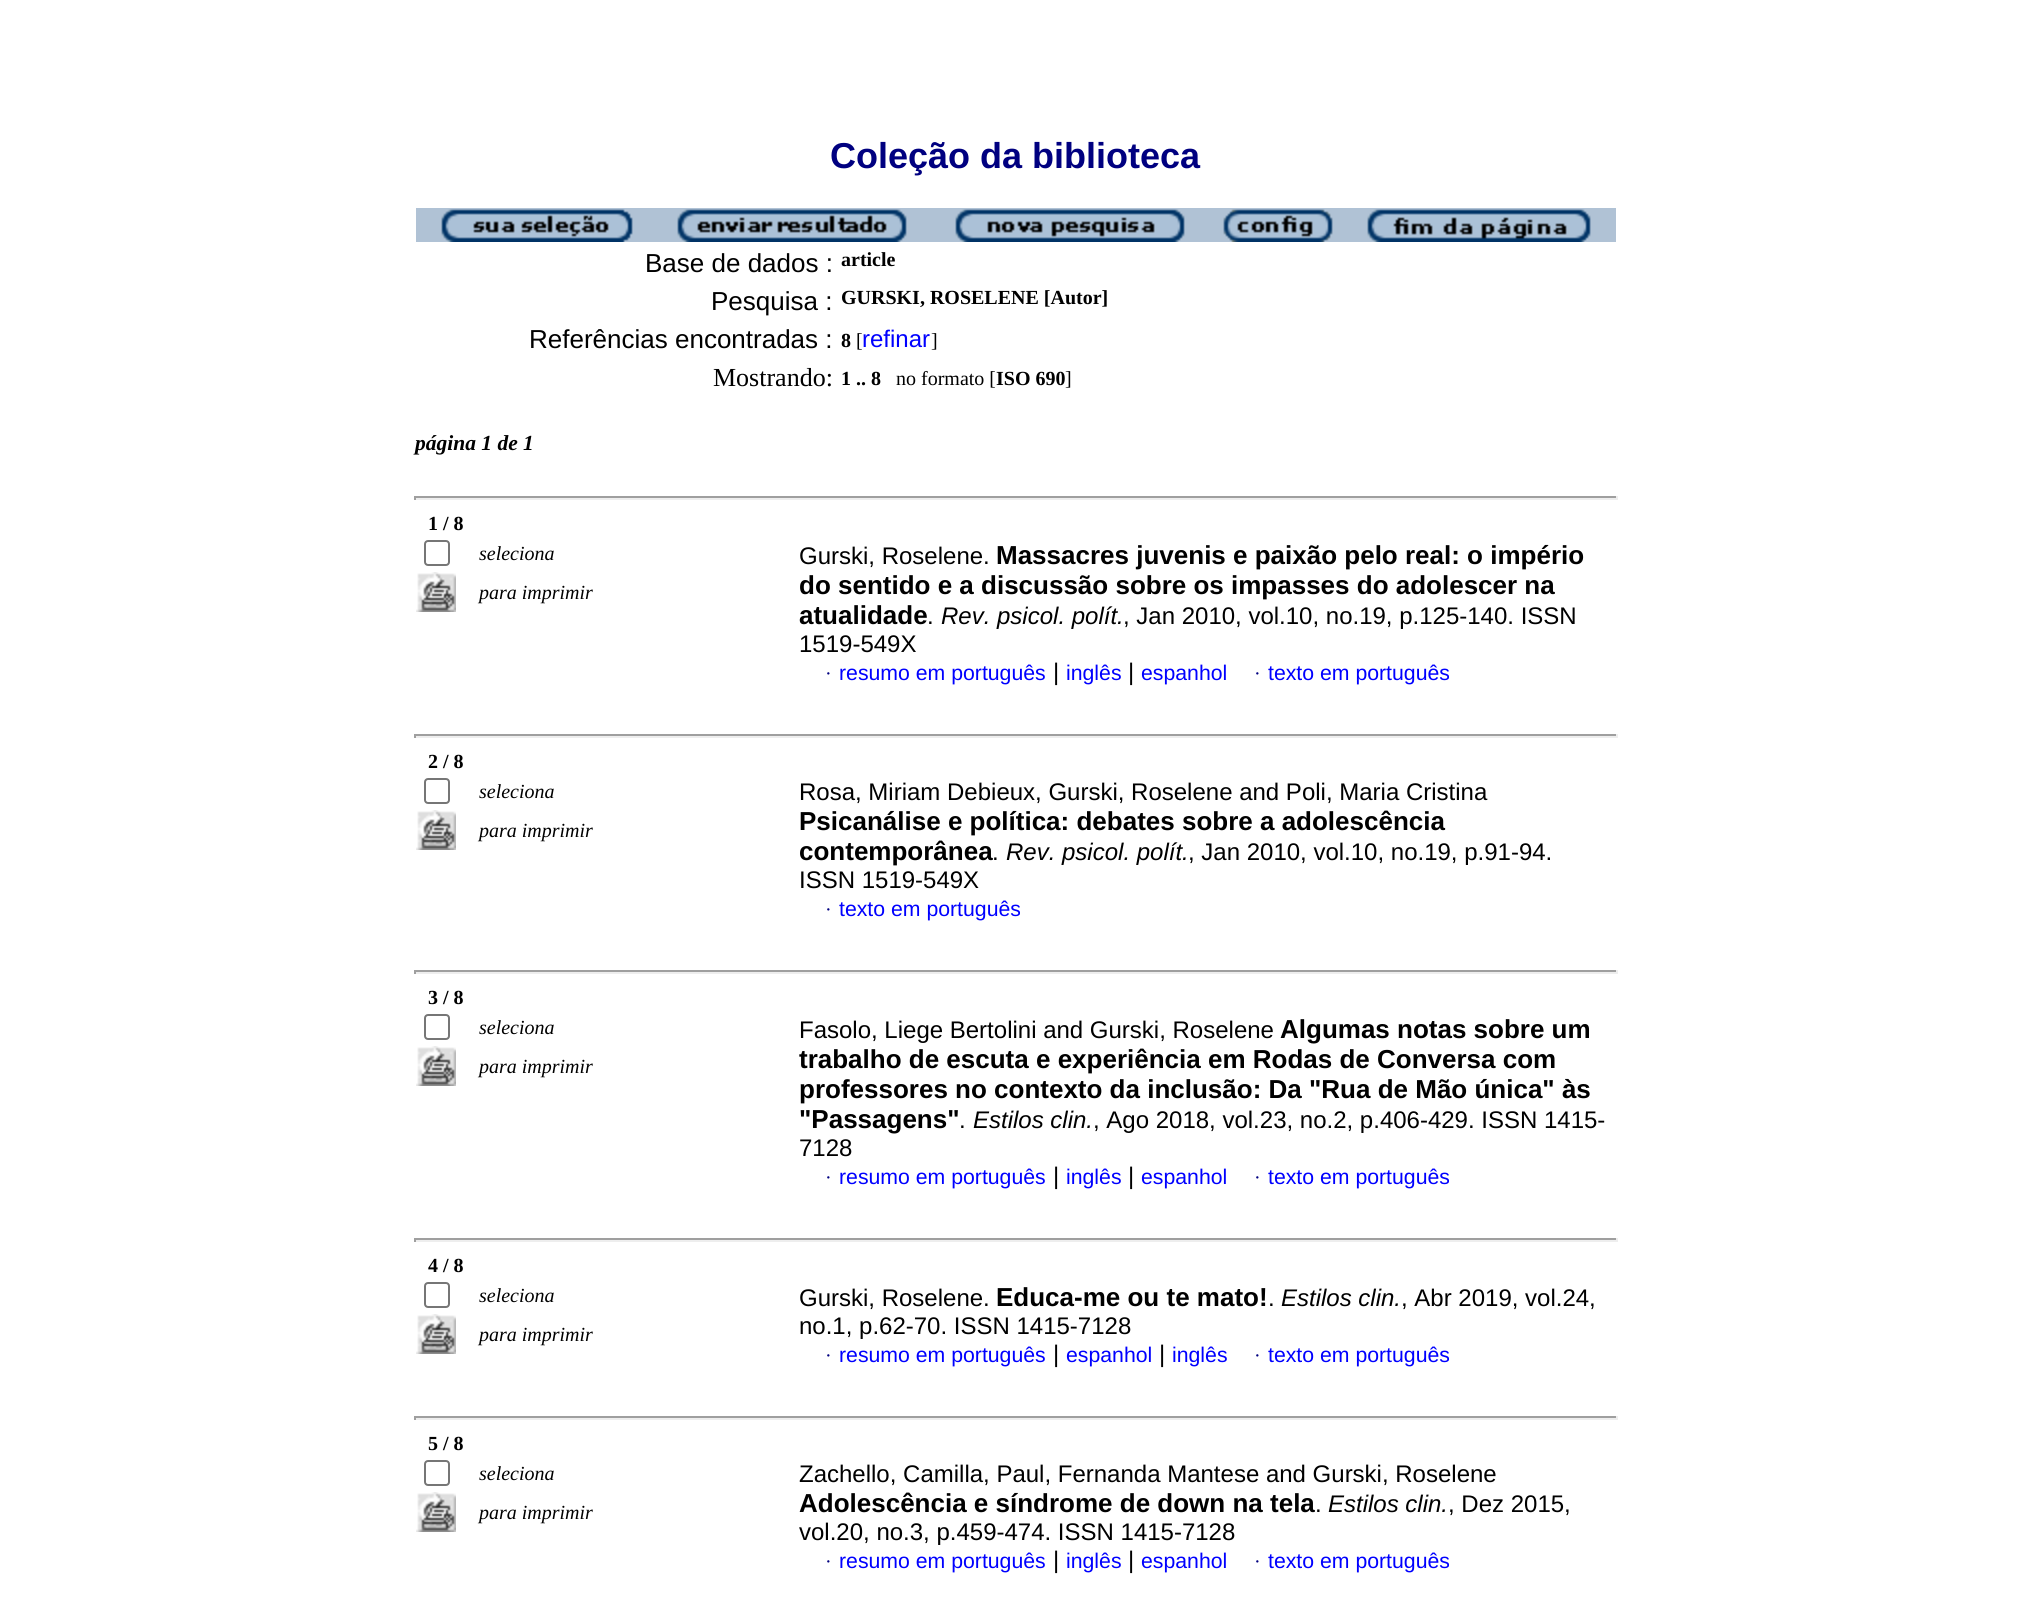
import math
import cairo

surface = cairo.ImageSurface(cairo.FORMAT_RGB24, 2029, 1598)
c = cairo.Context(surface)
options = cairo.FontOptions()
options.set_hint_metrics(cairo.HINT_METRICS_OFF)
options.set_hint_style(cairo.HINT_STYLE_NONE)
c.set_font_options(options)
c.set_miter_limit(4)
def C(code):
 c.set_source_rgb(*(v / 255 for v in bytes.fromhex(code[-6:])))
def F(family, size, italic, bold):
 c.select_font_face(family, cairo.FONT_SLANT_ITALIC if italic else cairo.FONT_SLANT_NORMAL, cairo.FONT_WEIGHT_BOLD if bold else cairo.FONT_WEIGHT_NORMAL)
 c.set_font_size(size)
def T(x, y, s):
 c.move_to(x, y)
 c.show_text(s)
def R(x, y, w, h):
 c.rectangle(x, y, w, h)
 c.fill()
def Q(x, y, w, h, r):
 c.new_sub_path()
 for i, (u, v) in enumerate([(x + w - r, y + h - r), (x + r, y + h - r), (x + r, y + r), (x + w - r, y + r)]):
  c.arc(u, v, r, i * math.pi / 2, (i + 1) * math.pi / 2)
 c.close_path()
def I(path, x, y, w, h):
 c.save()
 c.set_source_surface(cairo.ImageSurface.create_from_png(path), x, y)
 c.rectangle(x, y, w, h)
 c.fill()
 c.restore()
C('ffffff')
c.paint()
F('Liberation Sans',36,0,1)
C('000080')
T(830,168,'Coleção da biblioteca')
C('b0c2d5')
R(416,208,1200,34)
I('1.png',441,209,192,33)
I('2.png',677,209,230,33)
I('3.png',955,209,230,33)
I('4.png',1223,209,110,33)
I('5.png',1367,209,224,33)
F('Liberation Sans',26,0,0)
C('000000')
T(645,272,'Base de dados :')
F('Liberation Serif',20,0,1)
T(841,266,'article')
F('Liberation Sans',26,0,0)
T(711,310,'Pesquisa :')
F('Liberation Serif',20,0,1)
T(841,304,'GURSKI, ROSELENE [Autor]')
F('Liberation Sans',26,0,0)
T(529,348,'Referências encontradas :')
F('Liberation Serif',20,0,1)
T(841,347,'8')
F('Liberation Serif',20,0,0)
T(856,347,'[')
F('Liberation Sans',24,0,0)
C('0000ff')
T(862,347,'refinar')
F('Liberation Serif',20,0,0)
C('000000')
T(931,347,']')
F('Liberation Serif',26,0,0)
T(713,386,'Mostrando:')
F('Liberation Serif',20,0,1)
T(841,385,'1 .. 8')
F('Liberation Serif',20,0,0)
T(896,385,'no formato [')
F('Liberation Serif',20,0,1)
T(996,385,'ISO 690')
F('Liberation Serif',20,0,0)
T(1065,385,']')
F('Liberation Serif',21.5,1,1)
T(415,450,'página 1 de 1')
C('9f9f9f')
R(414,496,1204,2)
C('eeeeee')
R(1616,496,2,4)
R(414,498,1204,2)
C('9f9f9f')
R(414,496,2,4)
F('Liberation Serif',20,0,1)
C('000000')
T(428,530,'1 / 8')
Q(425,541,24,24,3)
C('767676')
c.stroke()
F('Liberation Serif',20,1,0)
C('000000')
T(479,560,'seleciona')
I('6.png',416,572,40,40)
T(479,599,'para imprimir')
F('Liberation Sans',24,0,0)
T(799,564,'Gurski, Roselene.')
F('Liberation Sans',26,0,1)
T(996,564,'Massacres juvenis e paixão pelo real: o império')
T(799,594,'do sentido e a discussão sobre os impasses do adolescer na')
T(799,624,'atualidade')
F('Liberation Sans',24,0,0)
T(927,624,'.')
F('Liberation Sans',24,1,0)
T(941,624,'Rev. psicol. polít.')
F('Liberation Sans',24,0,0)
T(1123,624,', Jan 2010, vol.10, no.19, p.125-140. ISSN')
T(799,652,'1519-549X')
F('Liberation Serif',20,0,0)
C('000080')
T(825,680,'·')
F('Liberation Sans',21.25,0,0)
C('0000ff')
T(839,680,'resumo em português')
F('Liberation Sans',24,0,0)
C('000000')
T(1053,680,'|')
F('Liberation Sans',21.25,0,0)
C('0000ff')
T(1066,680,'inglês')
F('Liberation Sans',24,0,0)
C('000000')
T(1128,680,'|')
F('Liberation Sans',21.25,0,0)
C('0000ff')
T(1141,680,'espanhol')
F('Liberation Serif',20,0,0)
C('000080')
T(1254,680,'·')
F('Liberation Sans',21.25,0,0)
C('0000ff')
T(1268,680,'texto em português')
C('9f9f9f')
R(414,734,1204,2)
C('eeeeee')
R(1616,734,2,4)
R(414,736,1204,2)
C('9f9f9f')
R(414,734,2,4)
F('Liberation Serif',20,0,1)
C('000000')
T(428,768,'2 / 8')
Q(425,779,24,24,3)
C('767676')
c.stroke()
F('Liberation Serif',20,1,0)
C('000000')
T(479,798,'seleciona')
I('6.png',416,810,40,40)
T(479,837,'para imprimir')
F('Liberation Sans',24,0,0)
T(799,800,'Rosa, Miriam Debieux, Gurski, Roselene and Poli, Maria Cristina')
F('Liberation Sans',26,0,1)
T(799,830,'Psicanálise e política: debates sobre a adolescência')
T(799,860,'contemporânea')
F('Liberation Sans',24,0,0)
T(992,860,'.')
F('Liberation Sans',24,1,0)
T(1006,860,'Rev. psicol. polít.')
F('Liberation Sans',24,0,0)
T(1188,860,', Jan 2010, vol.10, no.19, p.91-94.')
T(799,888,'ISSN 1519-549X')
F('Liberation Serif',20,0,0)
C('000080')
T(825,916,'·')
F('Liberation Sans',21.25,0,0)
C('0000ff')
T(839,916,'texto em português')
C('9f9f9f')
R(414,970,1204,2)
C('eeeeee')
R(1616,970,2,4)
R(414,972,1204,2)
C('9f9f9f')
R(414,970,2,4)
F('Liberation Serif',20,0,1)
C('000000')
T(428,1004,'3 / 8')
Q(425,1015,24,24,3)
C('767676')
c.stroke()
F('Liberation Serif',20,1,0)
C('000000')
T(479,1034,'seleciona')
I('6.png',416,1046,40,40)
T(479,1073,'para imprimir')
F('Liberation Sans',24,0,0)
T(799,1038,'Fasolo, Liege Bertolini and Gurski, Roselene')
F('Liberation Sans',26,0,1)
T(1280,1038,'Algumas notas sobre um')
T(799,1068,'trabalho de escuta e experiência em Rodas de Conversa com')
T(799,1098,'professores no contexto da inclusão: Da "Rua de Mão única" às')
T(799,1128,'"Passagens"')
F('Liberation Sans',24,0,0)
T(959,1128,'.')
F('Liberation Sans',24,1,0)
T(973,1128,'Estilos clin.')
F('Liberation Sans',24,0,0)
T(1093,1128,', Ago 2018, vol.23, no.2, p.406-429. ISSN 1415-')
T(799,1156,'7128')
F('Liberation Serif',20,0,0)
C('000080')
T(825,1184,'·')
F('Liberation Sans',21.25,0,0)
C('0000ff')
T(839,1184,'resumo em português')
F('Liberation Sans',24,0,0)
C('000000')
T(1053,1184,'|')
F('Liberation Sans',21.25,0,0)
C('0000ff')
T(1066,1184,'inglês')
F('Liberation Sans',24,0,0)
C('000000')
T(1128,1184,'|')
F('Liberation Sans',21.25,0,0)
C('0000ff')
T(1141,1184,'espanhol')
F('Liberation Serif',20,0,0)
C('000080')
T(1254,1184,'·')
F('Liberation Sans',21.25,0,0)
C('0000ff')
T(1268,1184,'texto em português')
C('9f9f9f')
R(414,1238,1204,2)
C('eeeeee')
R(1616,1238,2,4)
R(414,1240,1204,2)
C('9f9f9f')
R(414,1238,2,4)
F('Liberation Serif',20,0,1)
C('000000')
T(428,1272,'4 / 8')
Q(425,1283,24,24,3)
C('767676')
c.stroke()
F('Liberation Serif',20,1,0)
C('000000')
T(479,1302,'seleciona')
I('6.png',416,1314,40,40)
T(479,1341,'para imprimir')
F('Liberation Sans',24,0,0)
T(799,1306,'Gurski, Roselene.')
F('Liberation Sans',26,0,1)
T(996,1306,'Educa-me ou te mato!')
F('Liberation Sans',24,0,0)
T(1268,1306,'.')
F('Liberation Sans',24,1,0)
T(1281,1306,'Estilos clin.')
F('Liberation Sans',24,0,0)
T(1401,1306,', Abr 2019, vol.24,')
T(799,1334,'no.1, p.62-70. ISSN 1415-7128')
F('Liberation Serif',20,0,0)
C('000080')
T(825,1362,'·')
F('Liberation Sans',21.25,0,0)
C('0000ff')
T(839,1362,'resumo em português')
F('Liberation Sans',24,0,0)
C('000000')
T(1053,1362,'|')
F('Liberation Sans',21.25,0,0)
C('0000ff')
T(1066,1362,'espanhol')
F('Liberation Sans',24,0,0)
C('000000')
T(1159,1362,'|')
F('Liberation Sans',21.25,0,0)
C('0000ff')
T(1172,1362,'inglês')
F('Liberation Serif',20,0,0)
C('000080')
T(1254,1362,'·')
F('Liberation Sans',21.25,0,0)
C('0000ff')
T(1268,1362,'texto em português')
C('9f9f9f')
R(414,1416,1204,2)
C('eeeeee')
R(1616,1416,2,4)
R(414,1418,1204,2)
C('9f9f9f')
R(414,1416,2,4)
F('Liberation Serif',20,0,1)
C('000000')
T(428,1450,'5 / 8')
Q(425,1461,24,24,3)
C('767676')
c.stroke()
F('Liberation Serif',20,1,0)
C('000000')
T(479,1480,'seleciona')
I('6.png',416,1492,40,40)
T(479,1519,'para imprimir')
F('Liberation Sans',24,0,0)
T(799,1482,'Zachello, Camilla, Paul, Fernanda Mantese and Gurski, Roselene')
F('Liberation Sans',26,0,1)
T(799,1512,'Adolescência e síndrome de down na tela')
F('Liberation Sans',24,0,0)
T(1315,1512,'.')
F('Liberation Sans',24,1,0)
T(1328,1512,'Estilos clin.')
F('Liberation Sans',24,0,0)
T(1448,1512,', Dez 2015,')
T(799,1540,'vol.20, no.3, p.459-474. ISSN 1415-7128')
F('Liberation Serif',20,0,0)
C('000080')
T(825,1568,'·')
F('Liberation Sans',21.25,0,0)
C('0000ff')
T(839,1568,'resumo em português')
F('Liberation Sans',24,0,0)
C('000000')
T(1053,1568,'|')
F('Liberation Sans',21.25,0,0)
C('0000ff')
T(1066,1568,'inglês')
F('Liberation Sans',24,0,0)
C('000000')
T(1128,1568,'|')
F('Liberation Sans',21.25,0,0)
C('0000ff')
T(1141,1568,'espanhol')
F('Liberation Serif',20,0,0)
C('000080')
T(1254,1568,'·')
F('Liberation Sans',21.25,0,0)
C('0000ff')
T(1268,1568,'texto em português')
surface.write_to_png('o.png')
